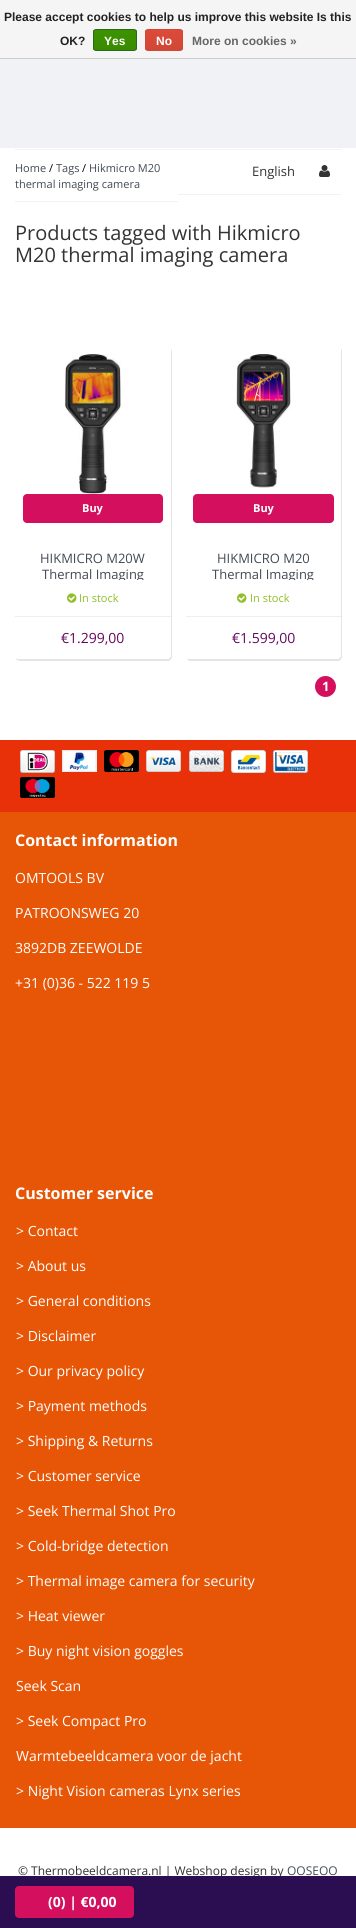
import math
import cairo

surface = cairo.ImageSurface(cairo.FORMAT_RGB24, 356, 1928)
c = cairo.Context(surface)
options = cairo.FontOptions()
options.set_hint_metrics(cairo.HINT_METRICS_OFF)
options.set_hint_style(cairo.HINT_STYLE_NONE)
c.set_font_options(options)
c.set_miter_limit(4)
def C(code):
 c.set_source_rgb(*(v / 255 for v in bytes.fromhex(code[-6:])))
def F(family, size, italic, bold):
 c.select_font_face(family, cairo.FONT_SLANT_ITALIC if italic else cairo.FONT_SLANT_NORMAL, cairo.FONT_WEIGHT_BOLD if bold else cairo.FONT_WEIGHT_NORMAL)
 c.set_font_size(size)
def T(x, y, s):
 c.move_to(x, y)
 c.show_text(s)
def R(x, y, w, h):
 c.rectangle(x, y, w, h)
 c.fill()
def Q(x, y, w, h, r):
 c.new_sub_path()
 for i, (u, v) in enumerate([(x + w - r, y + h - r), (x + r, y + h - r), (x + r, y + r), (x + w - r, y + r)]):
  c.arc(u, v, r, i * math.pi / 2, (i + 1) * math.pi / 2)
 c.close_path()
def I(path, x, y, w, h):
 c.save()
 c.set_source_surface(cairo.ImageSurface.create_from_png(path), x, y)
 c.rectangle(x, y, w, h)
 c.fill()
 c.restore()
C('ffffff')
c.paint()
C('f5f5f5')
R(0,0,356,58)
C('cccccc')
R(0,58,356,1)
F('Liberation Sans',12,0,1)
C('222222')
T(4,21,'Please accept cookies to help us improve this website Is this')
T(60,45,'OK?')
c.save()
Q(93,29,44,22,3)
c.clip()
gradient = cairo.LinearGradient(115,30,115,50)
gradient.add_color_stop_rgba(0,0.235,0.576,0,1)
gradient.add_color_stop_rgba(1,0.224,0.541,0,1)
c.set_source(gradient)
R(93,30,44,20)
c.restore()
Q(93.5,29.5,43,21,2.5)
C('29691d')
c.set_line_width(1)
c.stroke()
C('ffffff')
T(104,45,'Yes')
c.save()
Q(145,29,38,22,3)
c.clip()
gradient = cairo.LinearGradient(164,30,164,50)
gradient.add_color_stop_rgba(0,0.863,0.29,0.22,1)
gradient.add_color_stop_rgba(1,0.82,0.282,0.212,1)
c.set_source(gradient)
R(145,30,38,20)
c.restore()
Q(145.5,29.5,37,21,2.5)
C('d14836')
c.stroke()
C('ffffff')
T(156,45,'No')
C('666666')
T(192,45,'More on cookies »')
C('f1f2f6')
R(0,59,356,89)
C('f2f2f2')
R(15,149,326,1)
R(15,201,163,1)
F('Open Sans',11,0,0)
C('434a54')
T(15,172,'Home')
C('000000')
T(49,172,'/')
C('434a54')
T(56,172,'Tags')
C('000000')
T(82,172,'/')
C('434a54')
T(89,172,'Hikmicro M20')
T(15,188,'thermal imaging camera')
C('f2f2f2')
R(178,194,163,1)
F('Open Sans',13,0,0)
C('333333')
T(252,176,'English')
I('1.png',319,165,11,12)
F('Open Sans',20,0,0)
T(15,240,'Products tagged with Hikmicro')
T(15,262,'M20 thermal imaging camera')
C('e5e5e5')
c.new_path()
c.move_to(16,658)
c.curve_to(16,660,18,661,20,661)
c.line_to(168,661)
c.curve_to(170,661,172,659,172,657)
c.line_to(172,352)
c.curve_to(172,351,172,350,171,349)
c.line_to(171,655)
c.curve_to(171,657,169,659,167,659)
c.line_to(19,659)
c.curve_to(18,659,17,659,16,658)
c.close_path()
c.fill()
C('ffffff')
Q(15,346,156,313,4)
c.fill()
I('2.png',64,354,57,140)
C('d4105e')
Q(23,494,140,29,4)
c.fill()
F('Open Sans',11,0,1)
C('ffffff')
T(82,512,'Buy')
F('Open Sans',13,0,0)
C('434a54')
T(40,563,'HIKMICRO M20W')
c.save()
c.rectangle(35,550,116,30)
c.clip()
T(42,579,'Thermal Imaging')
c.restore()
I('3.png',67,593,10,10)
F('Open Sans',11,0,0)
C('90bf26')
T(79,602,'In stock')
C('eeeeee')
R(15,616,156,1)
F('Open Sans',14,0,0)
C('64095e')
T(61,643,'€1.299,00')
C('e5e5e5')
c.new_path()
c.move_to(187,658)
c.curve_to(187,660,189,661,191,661)
c.line_to(338,661)
c.curve_to(340,661,342,659,342,657)
c.line_to(342,352)
c.curve_to(342,351,342,350,341,349)
c.line_to(341,655)
c.curve_to(341,657,339,659,337,659)
c.line_to(190,659)
c.curve_to(189,659,188,659,187,658)
c.close_path()
c.fill()
C('ffffff')
Q(186,346,155,313,4)
c.fill()
I('4.png',236,354,55,134)
C('d4105e')
Q(193,494,141,29,4)
c.fill()
F('Open Sans',11,0,1)
C('ffffff')
T(253,512,'Buy')
F('Open Sans',13,0,0)
C('434a54')
T(217,563,'HIKMICRO M20')
c.save()
c.rectangle(206,550,115,30)
c.clip()
T(212,579,'Thermal Imaging')
c.restore()
I('3.png',237,593,10,10)
F('Open Sans',11,0,0)
C('90bf26')
T(250,602,'In stock')
C('eeeeee')
R(186,616,155,1)
F('Open Sans',14,0,0)
C('64095e')
T(232,643,'€1.599,00')
C('d4105e')
c.new_path()
c.arc(325.5,686.5,10.5,0,2 * math.pi)
c.fill()
F('Open Sans',13,0,1)
C('ffffff')
T(322,691,'1')
C('e83109')
R(0,740,356,72)
I('5.png',20,750,35,23)
I('6.png',62,750,35,22)
I('7.png',104,750,35,22)
I('8.png',146,750,35,22)
I('9.png',189,750,35,22)
I('10.png',231,750,35,23)
I('11.png',273,750,35,23)
I('12.png',20,777,35,21)
C('e65606')
R(0,812,356,1016)
F('Open Sans',16,0,1)
C('ffffff')
T(15,846,'Contact information')
F('Open Sans',14,0,0)
T(15,883,'OMTOOLS BV')
T(15,918,'PATROONSWEG 20')
T(15,953,'3892DB ZEEWOLDE')
T(15,988,'+31 (0)36 - 522 119 5')
F('Open Sans',16,0,1)
T(15,1199,'Customer service')
F('Open Sans',14,0,0)
T(16,1236,'> Contact')
T(16,1271,'> About us')
T(16,1306,'> General conditions')
T(16,1341,'> Disclaimer')
T(16,1376,'> Our privacy policy')
T(16,1411,'> Payment methods')
T(16,1446,'> Shipping & Returns')
T(16,1481,'> Customer service')
T(16,1516,'> Seek Thermal Shot Pro')
T(16,1551,'> Cold-bridge detection')
T(16,1586,'> Thermal image camera for security')
T(16,1621,'> Heat viewer')
T(16,1656,'> Buy night vision goggles')
T(16,1691,'Seek Scan')
T(16,1726,'> Seek Compact Pro')
T(16,1761,'Warmtebeeldcamera voor de jacht')
T(16,1796,'> Night Vision cameras Lynx series')
F('Open Sans',12,0,0)
C('333333')
T(18,1875,'© Thermobeeldcamera.nl | Webshop design by')
C('434a54')
T(287,1875,'OOSEOO')
C('2b0d51')
R(0,1876,356,52)
C('d4105e')
Q(15,1886,119,32,4)
c.fill()
F('Open Sans',14,0,1)
C('ffffff')
T(48,1907,'(0) | €0,00')
surface.write_to_png('o.png')
